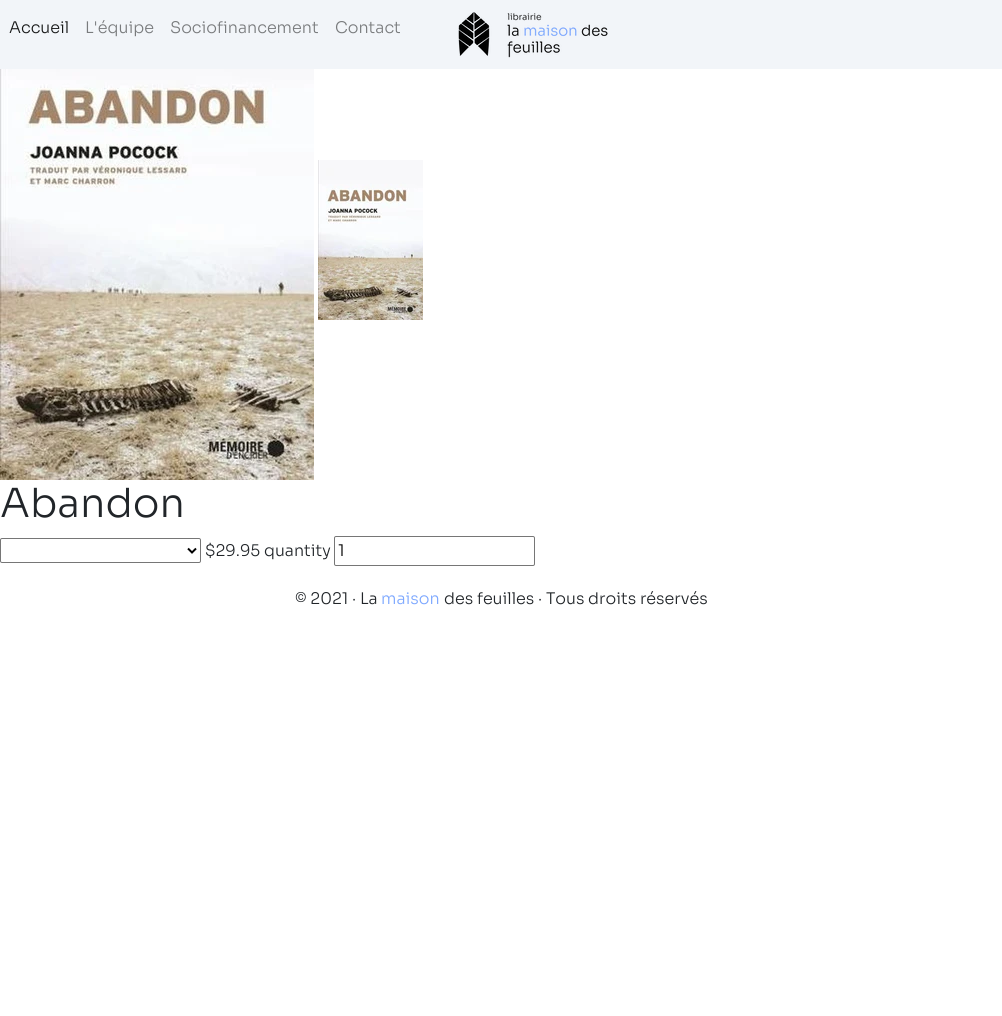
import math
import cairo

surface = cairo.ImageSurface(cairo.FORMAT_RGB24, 1002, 1016)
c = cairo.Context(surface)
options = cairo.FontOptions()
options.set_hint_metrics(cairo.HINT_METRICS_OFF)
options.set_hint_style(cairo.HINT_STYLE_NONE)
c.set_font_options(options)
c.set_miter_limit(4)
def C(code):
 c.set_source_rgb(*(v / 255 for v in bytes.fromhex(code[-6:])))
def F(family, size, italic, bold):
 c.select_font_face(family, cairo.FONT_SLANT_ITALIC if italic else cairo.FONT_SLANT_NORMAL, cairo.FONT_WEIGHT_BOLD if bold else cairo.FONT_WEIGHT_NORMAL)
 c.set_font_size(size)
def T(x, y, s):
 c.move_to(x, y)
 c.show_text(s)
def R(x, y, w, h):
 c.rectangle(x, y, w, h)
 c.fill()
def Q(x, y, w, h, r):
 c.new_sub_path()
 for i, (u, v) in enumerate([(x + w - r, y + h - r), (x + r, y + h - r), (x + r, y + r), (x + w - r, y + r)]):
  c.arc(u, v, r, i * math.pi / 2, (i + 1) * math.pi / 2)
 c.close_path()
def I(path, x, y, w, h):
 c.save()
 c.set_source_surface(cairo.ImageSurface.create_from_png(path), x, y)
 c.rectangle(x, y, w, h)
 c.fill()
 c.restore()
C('ffffff')
c.paint()
C('f2f5f9')
R(0,0,1002,69)
F('Sora Light',16,0,0)
C('181919')
T(9,33,'Accueil')
C('797b7d')
T(85,33,'L\'équipe')
T(170,33,'Sociofinancement')
T(335,33,'Contact')
I('1.png',458,12,150,46)
I('2.png',0,69,314,411)
I('3.png',318,160,105,160)
F('Sora Light',40,0,0)
C('212529')
T(0,517,'Abandon')
Q(.5,538.5,200,24,1.5)
C('767676')
c.set_line_width(1)
c.stroke()
c.new_path()
c.move_to(188,548.5)
c.line_to(192,552.5)
c.line_to(196,548.5)
C('000000')
c.set_line_width(2)
c.stroke()
F('Sora Light',16,0,0)
C('212529')
T(205,556,'$29.95 quantity')
Q(334.5,536.5,200,29,1.5)
C('767676')
c.set_line_width(1)
c.stroke()
C('000000')
T(338,556,'1')
C('212529')
T(295,604,'© 2021 · La')
C('7ca7ff')
T(381,604,'maison')
C('212529')
T(444,604,'des feuilles · Tous droits réservés')
surface.write_to_png('o.png')
